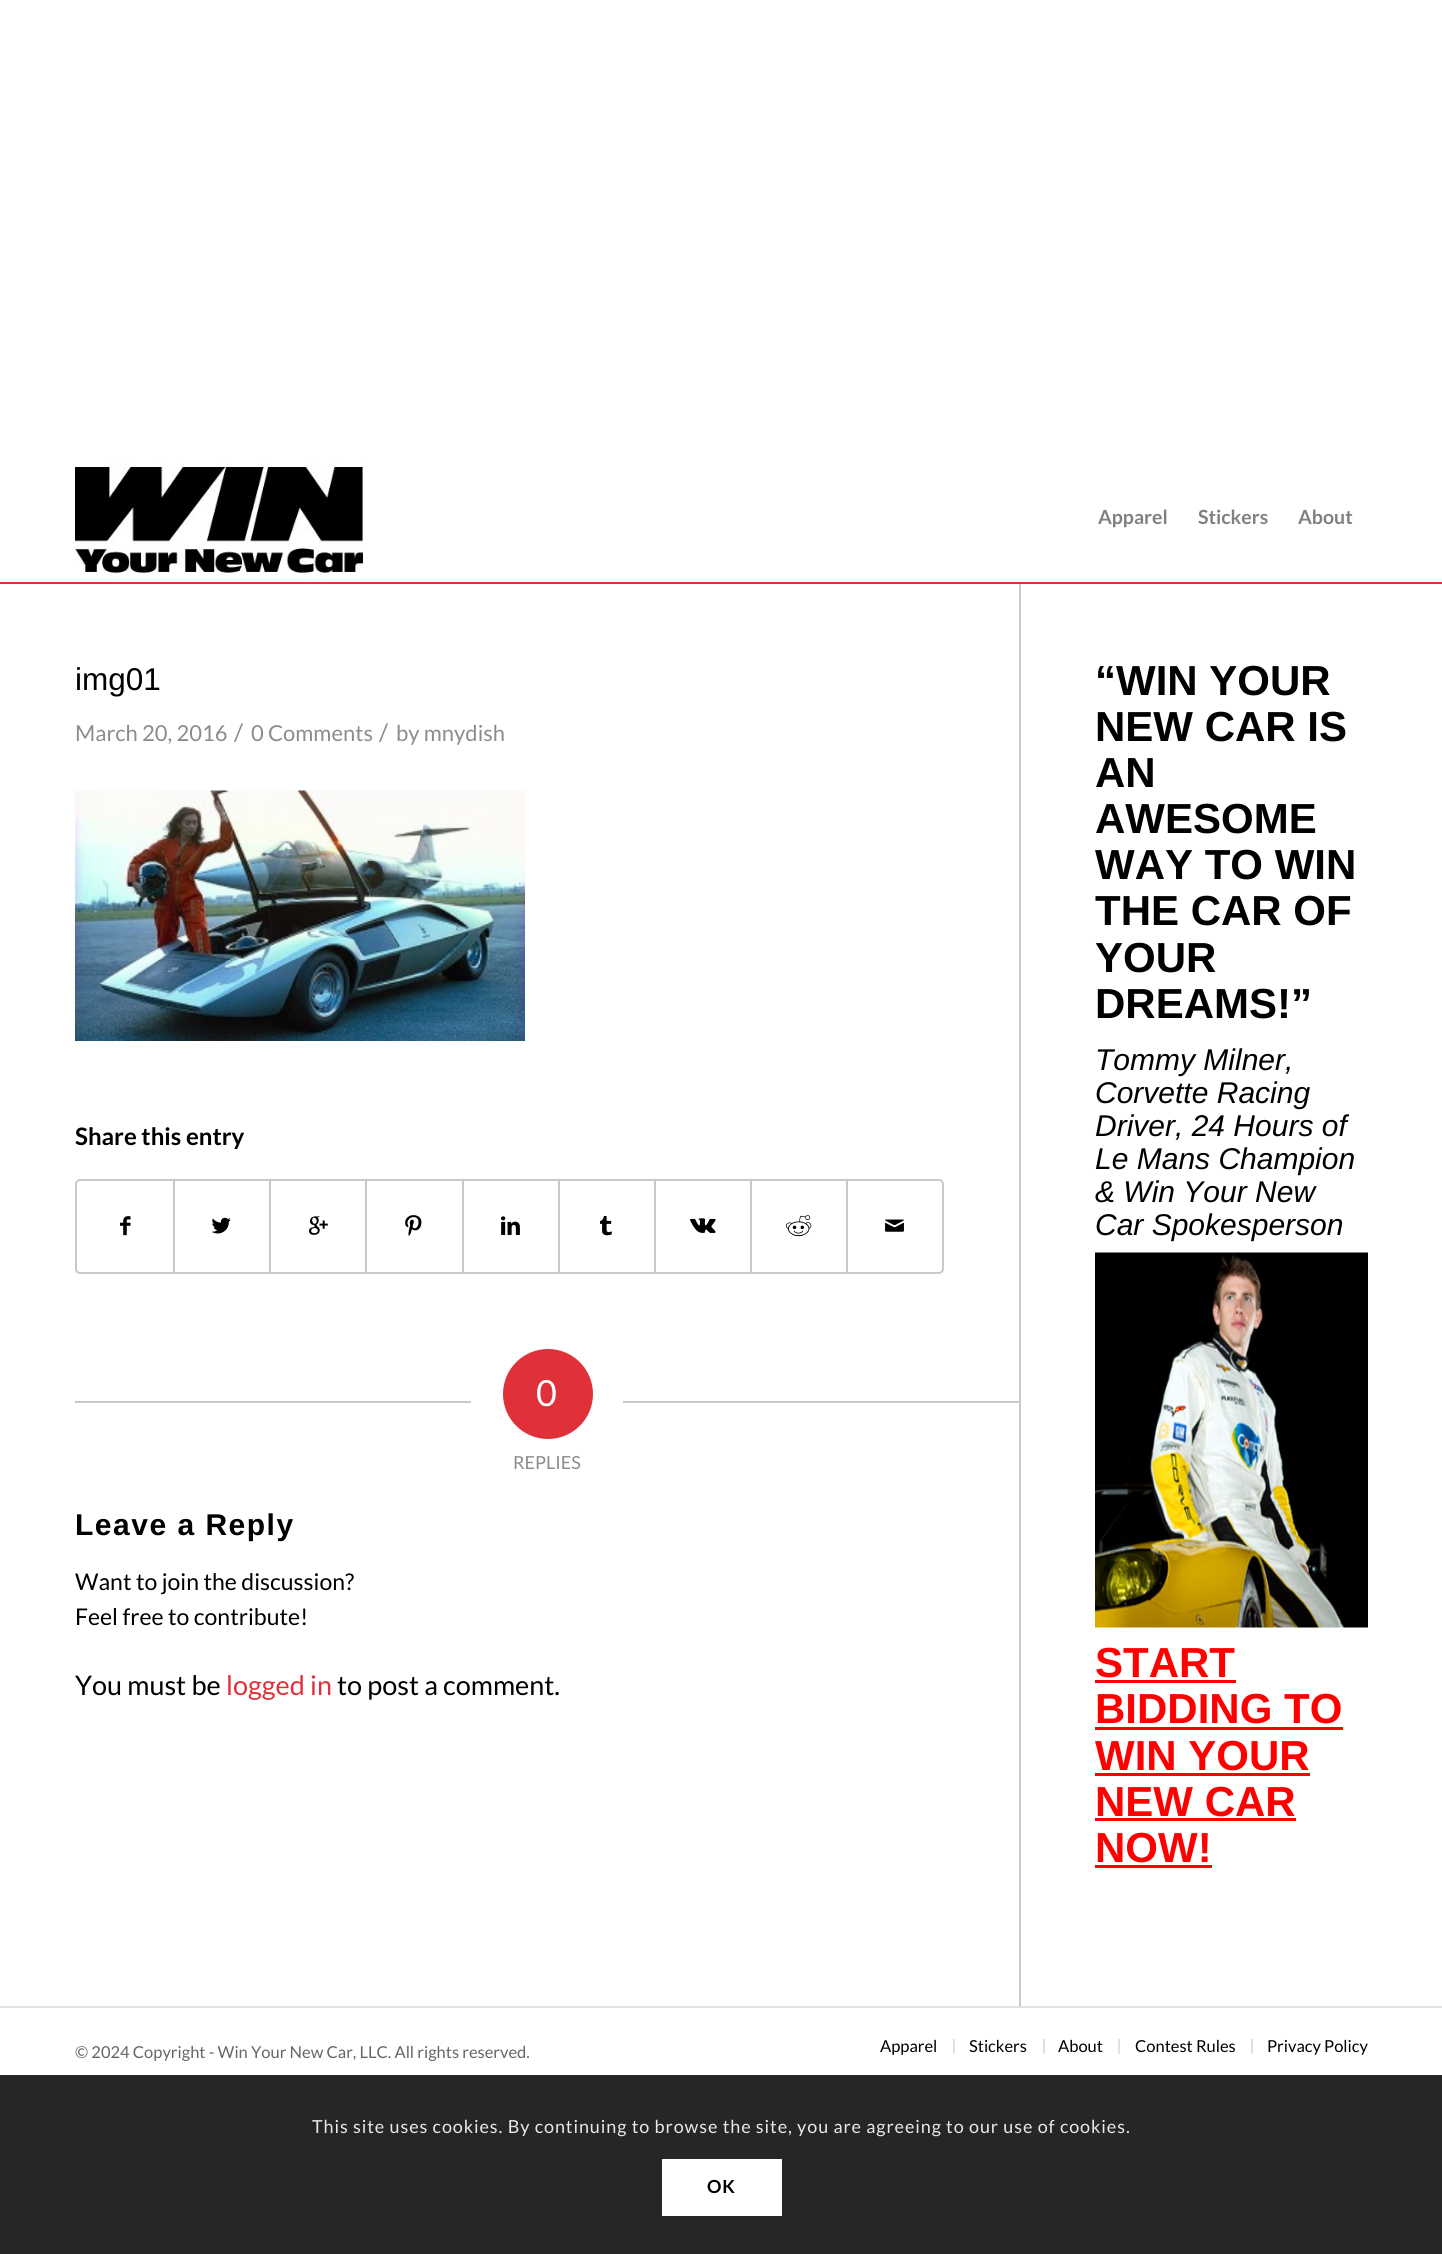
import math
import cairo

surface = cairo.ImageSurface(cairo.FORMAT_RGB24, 1442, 2254)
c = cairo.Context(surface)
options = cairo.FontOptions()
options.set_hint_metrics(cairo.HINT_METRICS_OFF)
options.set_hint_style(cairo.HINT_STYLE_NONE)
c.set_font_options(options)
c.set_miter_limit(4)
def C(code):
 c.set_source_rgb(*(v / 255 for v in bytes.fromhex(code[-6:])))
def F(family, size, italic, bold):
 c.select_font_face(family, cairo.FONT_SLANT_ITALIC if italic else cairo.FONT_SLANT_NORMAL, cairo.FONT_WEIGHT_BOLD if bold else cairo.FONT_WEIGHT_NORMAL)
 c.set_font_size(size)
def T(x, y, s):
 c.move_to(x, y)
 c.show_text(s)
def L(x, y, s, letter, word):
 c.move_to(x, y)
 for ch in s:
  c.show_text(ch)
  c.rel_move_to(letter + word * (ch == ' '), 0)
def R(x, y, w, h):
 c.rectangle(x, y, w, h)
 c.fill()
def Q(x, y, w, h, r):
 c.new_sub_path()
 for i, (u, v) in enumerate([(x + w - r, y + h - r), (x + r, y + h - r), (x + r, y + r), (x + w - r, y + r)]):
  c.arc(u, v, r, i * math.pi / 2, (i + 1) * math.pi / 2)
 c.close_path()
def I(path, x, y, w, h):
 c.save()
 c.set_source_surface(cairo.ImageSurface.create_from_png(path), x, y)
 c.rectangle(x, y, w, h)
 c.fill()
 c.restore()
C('ffffff')
c.paint()
C('e0313a')
R(0,582,1442,2)
I('1.png',75,463,288,114)
F('Lato',19.5,0,1)
C('808080')
T(1098,524,'Apparel')
T(1198,524,'Stickers')
T(1298,524,'About')
F('Liberation Sans',31.5,0,0)
C('000000')
T(75,690,'img01')
F('Lato',22,0,0)
C('8c8c8c')
T(75,741,'March 20, 2016')
F('Lato',24,0,0)
T(234,741,'/')
F('Lato',22,0,0)
T(251,741,'0 Comments')
F('Lato',24,0,0)
T(379,741,'/')
F('Lato',22,0,0)
T(396,741,'by mnydish')
I('2.png',75,790,450,251)
F('Lato',24,0,1)
C('000000')
T(75,1145,'Share this entry')
Q(76,1180,867,93,4)
C('c9c9c9')
c.stroke()
I('3.png',120,1216,11,20)
R(173,1181,2,91)
I('4.png',211,1217,20,17)
R(269,1181,2,91)
I('5.png',309,1216,19,19)
R(365,1181,2,91)
I('6.png',405,1215,17,21)
R(462,1181,2,91)
I('7.png',501,1216,19,19)
R(558,1181,2,91)
I('8.png',600,1216,12,20)
R(654,1181,2,91)
I('9.png',690,1218,26,15)
R(750,1181,2,91)
I('10.png',786,1215,26,22)
R(846,1181,2,91)
I('11.png',885,1219,19,13)
R(75,1401,396,2)
C('e0313a')
c.arc(548,1394,45,0,2 * math.pi)
c.fill()
F('Lato',36,0,0)
C('ffffff')
T(536,1406,'0')
C('c9c9c9')
R(623,1401,396,2)
F('Lato',18,0,0)
C('8c8c8c')
T(513,1469,'REPLIES')
F('Liberation Sans',30,0,1)
C('000000')
L(75,1535,'Leave a Reply',1.5,0)
F('Lato',23,0,0)
T(75,1590,'Want to join the discussion?')
T(75,1625,'Feel free to contribute!')
F('Lato',27,0,0)
T(75,1695,'You must be')
C('e0313a')
T(226,1695,'logged in')
C('000000')
T(337,1695,'to post a comment.')
C('c9c9c9')
R(1019,584,2,1423)
F('Liberation Sans',42,0,1)
C('000000')
T(1095,695,'“WIN YOUR')
T(1095,741,'NEW CAR IS')
T(1095,787,'AN')
T(1095,833,'AWESOME')
T(1095,879,'WAY TO WIN')
T(1095,925,'THE CAR OF')
T(1095,972,'YOUR')
T(1095,1018,'DREAMS!”')
F('Liberation Sans',30,1,0)
T(1095,1070,'Tommy Milner,')
T(1095,1103,'Corvette Racing')
T(1095,1136,'Driver, 24 Hours of')
T(1095,1169,'Le Mans Champion')
T(1095,1202,'& Win Your New')
T(1095,1235,'Car Spokesperson')
I('12.png',1095,1252,273,376)
F('Liberation Sans',42,0,1)
C('ff0000')
T(1095,1677,'START')
R(1095,1680,141,3)
T(1095,1723,'BIDDING TO')
R(1095,1727,248,3)
T(1095,1770,'WIN YOUR')
R(1095,1773,215,3)
T(1095,1816,'NEW CAR')
R(1095,1818,201,3)
T(1095,1862,'NOW!')
R(1095,1865,117,3)
C('e1e1e1')
R(0,2006,1442,2)
F('Lato',16.5,0,0)
C('666666')
T(75,2058,'© 2024 Copyright - Win Your New Car, LLC. All rights reserved.')
C('000000')
T(880,2052,'Apparel')
C('e1e1e1')
R(953,2039,2,15)
C('000000')
T(969,2052,'Stickers')
C('e1e1e1')
R(1043,2039,2,15)
C('000000')
T(1058,2052,'About')
C('e1e1e1')
R(1118,2039,2,15)
C('000000')
T(1135,2052,'Contest Rules')
C('e1e1e1')
R(1251,2039,2,15)
C('000000')
T(1267,2052,'Privacy Policy')
C('262626')
R(0,2075,1442,179)
F('Lato',18,0,0)
C('e9e9e9')
L(312,2133,'This site uses cookies. By continuing to browse the site, you are agreeing to our use of cookies.',.9,0)
C('ffffff')
R(662,2159,120,57)
F('Lato',18,0,1)
C('000000')
L(707,2193,'OK',.9,0)
surface.write_to_png('o.png')
